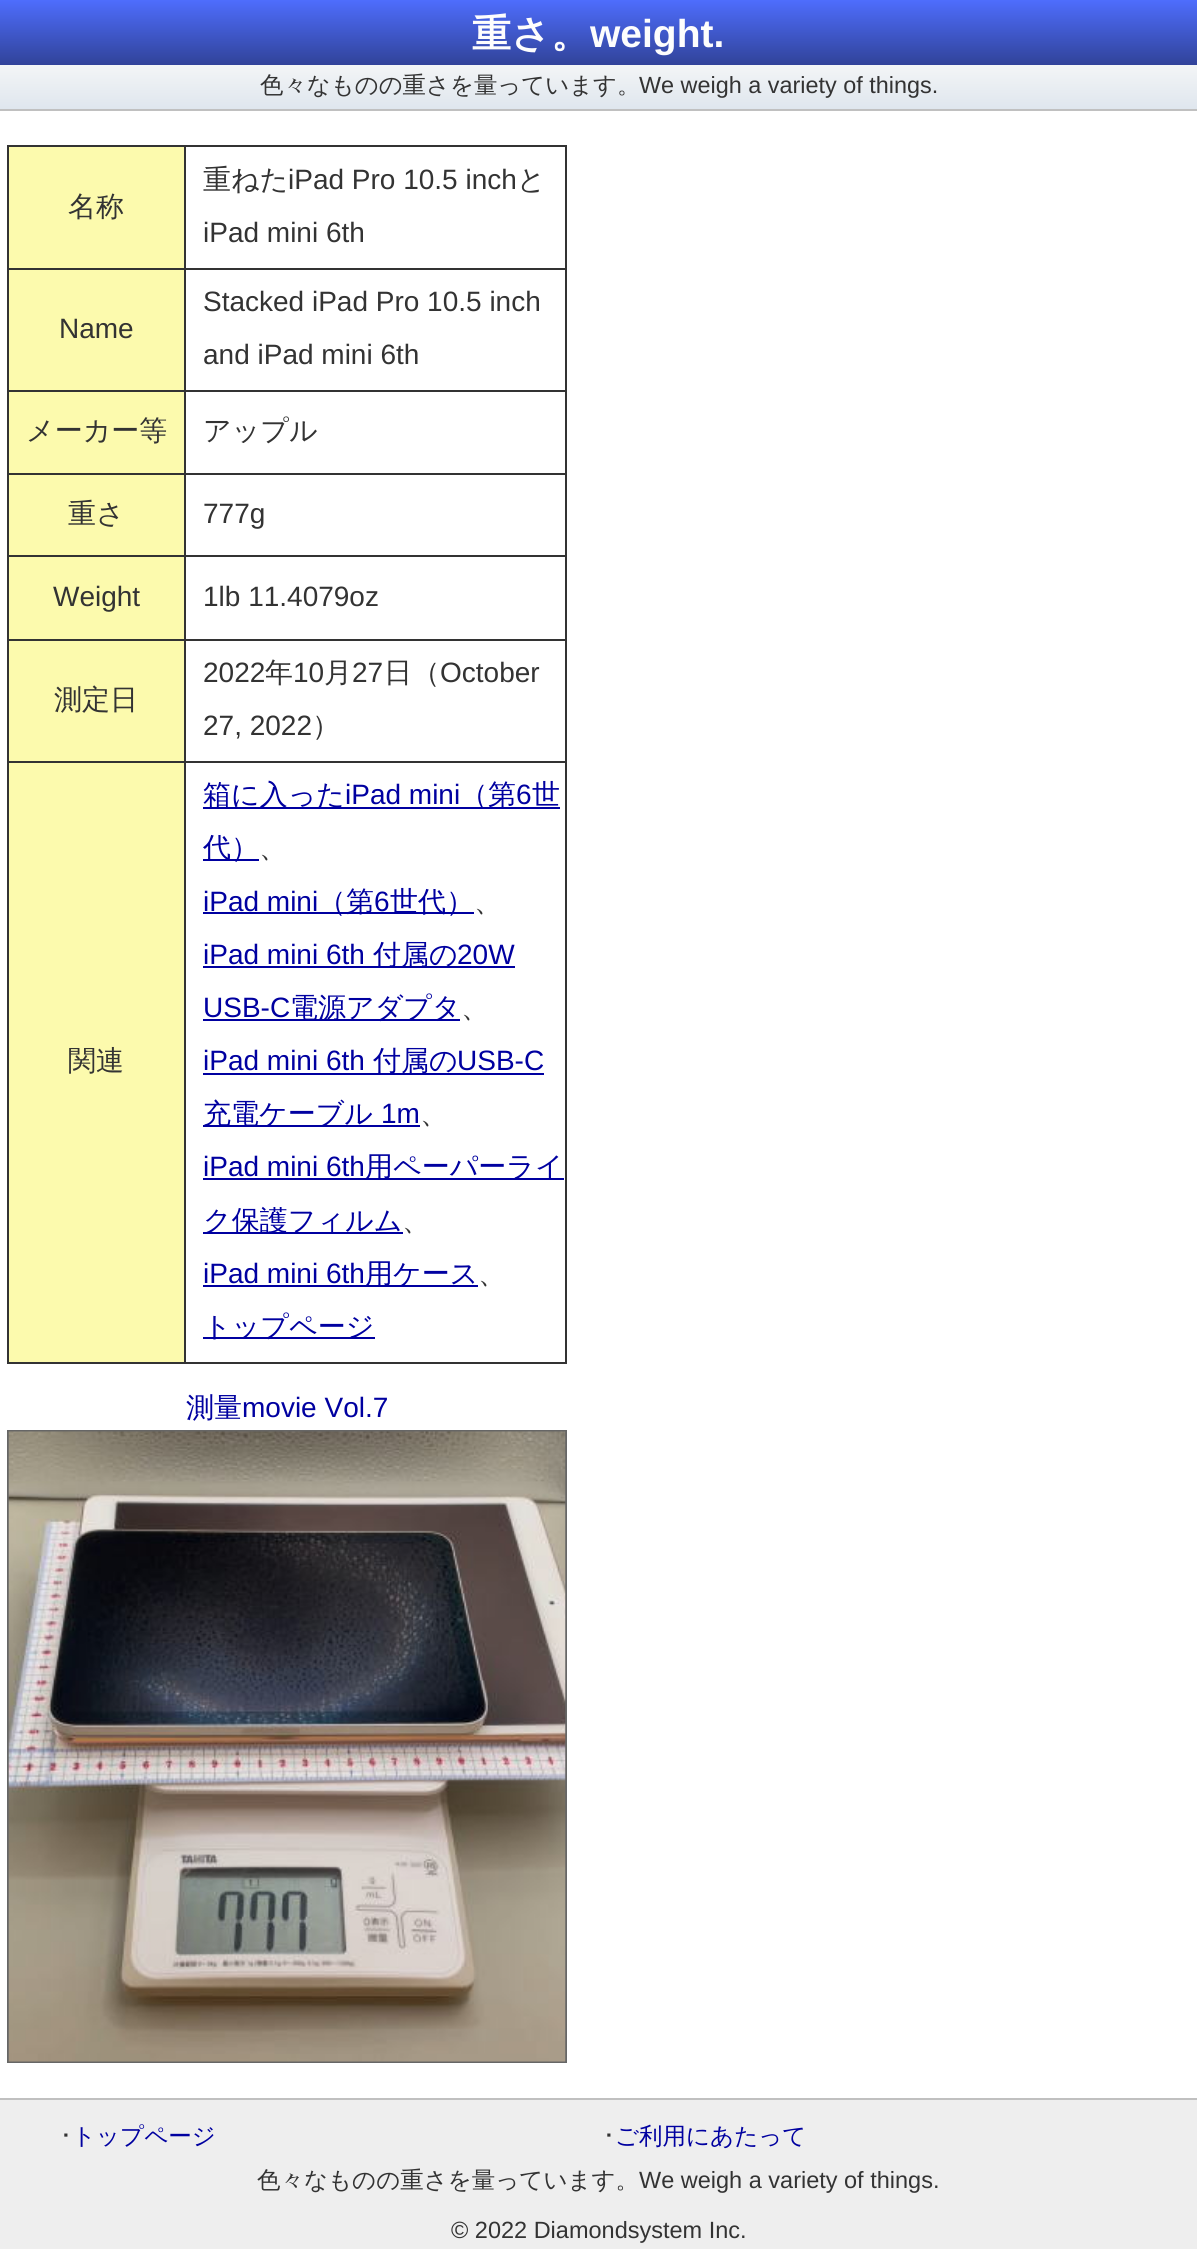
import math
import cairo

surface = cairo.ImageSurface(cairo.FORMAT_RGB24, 1197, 2260)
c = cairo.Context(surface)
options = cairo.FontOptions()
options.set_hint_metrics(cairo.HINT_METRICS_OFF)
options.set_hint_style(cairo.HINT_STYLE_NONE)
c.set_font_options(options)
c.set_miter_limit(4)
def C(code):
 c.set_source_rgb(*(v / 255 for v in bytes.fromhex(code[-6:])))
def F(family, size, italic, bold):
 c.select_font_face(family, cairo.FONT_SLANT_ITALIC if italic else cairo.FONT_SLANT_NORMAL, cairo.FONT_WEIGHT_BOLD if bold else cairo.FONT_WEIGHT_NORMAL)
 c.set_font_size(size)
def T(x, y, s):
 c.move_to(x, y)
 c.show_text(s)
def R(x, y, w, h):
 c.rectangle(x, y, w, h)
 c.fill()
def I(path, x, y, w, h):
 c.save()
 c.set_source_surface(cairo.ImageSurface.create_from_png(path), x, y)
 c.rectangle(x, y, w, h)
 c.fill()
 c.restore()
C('ffffff')
c.paint()
C('c0c0c0')
R(0,109,1197,2)
gradient = cairo.LinearGradient(599,0,599,65)
gradient.add_color_stop_rgba(0,0.306,0.427,0.992,1)
gradient.add_color_stop_rgba(1,0.192,0.263,0.6,1)
c.set_source(gradient)
R(0,0,1197,65)
F('WenQuanYi Zen Hei',39,0,1)
C('fdfdfd')
T(472,47,'重さ。')
F('Liberation Sans',39,0,1)
T(590,47,'weight.')
gradient = cairo.LinearGradient(599,65,599,109)
gradient.add_color_stop_rgba(0,0.953,0.961,0.965,1)
gradient.add_color_stop_rgba(1,0.875,0.902,0.933,1)
c.set_source(gradient)
R(0,65,1197,44)
F('WenQuanYi Zen Hei Medium',23.4,0,0)
C('333333')
T(260,93,'色々なものの重さを量っています。')
F('Liberation Sans',23.4,0,0)
T(639,93,'We weigh a variety of things.')
R(7,145,560,2)
R(565,145,2,1218)
R(7,1362,560,2)
R(7,145,2,1218)
C('fcfaad')
R(9,147,175,121)
F('WenQuanYi Zen Hei Medium',28,0,0)
C('333333')
T(68,216,'名称')
R(184,268,383,2)
R(184,390,383,2)
R(184,473,383,2)
R(184,555,383,2)
R(184,639,383,2)
R(184,761,383,2)
R(184,761,2,602)
R(7,761,179,2)
R(184,639,2,124)
R(7,639,179,2)
R(184,555,2,86)
R(7,555,179,2)
R(184,473,2,84)
R(7,473,179,2)
R(184,390,2,84)
R(7,390,179,2)
R(184,268,2,124)
R(7,268,179,2)
R(184,145,2,125)
T(203,189,'重ねた')
F('Liberation Sans',28,0,0)
T(288,189,'iPad Pro 10.5 inch')
F('WenQuanYi Zen Hei Medium',28,0,0)
T(517,189,'と')
F('Liberation Sans',28,0,0)
T(203,242,'iPad mini 6th')
C('fcfaad')
R(9,270,175,120)
C('333333')
T(59,338,'Name')
T(203,311,'Stacked iPad Pro 10.5 inch')
T(203,364,'and iPad mini 6th')
C('fcfaad')
R(9,392,175,81)
F('WenQuanYi Zen Hei Medium',28,0,0)
C('333333')
T(26,440,'メーカー等')
T(203,440,'アップル')
C('fcfaad')
R(9,475,175,80)
C('333333')
T(68,523,'重さ')
F('Liberation Sans',28,0,0)
T(203,523,'777g')
C('fcfaad')
R(9,557,175,82)
C('333333')
T(53,606,'Weight')
T(203,606,'1lb 11.4079oz')
C('fcfaad')
R(9,641,175,120)
F('WenQuanYi Zen Hei Medium',28,0,0)
C('333333')
T(54,709,'測定日')
F('Liberation Sans',28,0,0)
T(203,682,'2022')
F('WenQuanYi Zen Hei Medium',28,0,0)
T(265,682,'年')
F('Liberation Sans',28,0,0)
T(293,682,'10')
F('WenQuanYi Zen Hei Medium',28,0,0)
T(324,682,'月')
F('Liberation Sans',28,0,0)
T(352,682,'27')
F('WenQuanYi Zen Hei Medium',28,0,0)
T(384,682,'日（')
F('Liberation Sans',28,0,0)
T(440,682,'October')
T(203,735,'27, 2022')
F('WenQuanYi Zen Hei Medium',28,0,0)
T(312,735,'）')
C('fcfaad')
R(9,763,175,599)
C('333333')
T(68,1070,'関連')
C('0000a0')
R(203,807,357,2)
T(203,804,'箱に入った')
F('Liberation Sans',28,0,0)
T(345,804,'iPad mini')
F('WenQuanYi Zen Hei Medium',28,0,0)
T(460,804,'（第')
F('Liberation Sans',28,0,0)
T(516,804,'6')
F('WenQuanYi Zen Hei Medium',28,0,0)
T(532,804,'世')
R(203,859,56,2)
T(203,857,'代）')
C('333333')
T(259,857,'、')
F('Liberation Sans',28,0,0)
C('0000a0')
T(203,911,'iPad mini')
R(203,912,271,2)
F('WenQuanYi Zen Hei Medium',28,0,0)
T(318,911,'（第')
F('Liberation Sans',28,0,0)
T(374,911,'6')
F('WenQuanYi Zen Hei Medium',28,0,0)
T(390,911,'世代）')
C('333333')
T(474,911,'、')
F('Liberation Sans',28,0,0)
C('0000a0')
T(203,964,'iPad mini 6th')
R(203,966,312,2)
F('WenQuanYi Zen Hei Medium',28,0,0)
T(373,964,'付属の')
F('Liberation Sans',28,0,0)
T(457,964,'20W')
T(203,1017,'USB-C')
R(203,1019,257,2)
F('WenQuanYi Zen Hei Medium',28,0,0)
T(290,1017,'電源アダプタ')
C('333333')
T(461,1017,'、')
F('Liberation Sans',28,0,0)
C('0000a0')
T(203,1070,'iPad mini 6th')
R(203,1073,341,2)
F('WenQuanYi Zen Hei Medium',28,0,0)
T(373,1070,'付属の')
F('Liberation Sans',28,0,0)
T(457,1070,'USB-C')
R(203,1125,217,2)
F('WenQuanYi Zen Hei Medium',28,0,0)
T(203,1123,'充電ケーブル')
F('Liberation Sans',28,0,0)
T(381,1123,'1m')
F('WenQuanYi Zen Hei Medium',28,0,0)
C('333333')
T(420,1123,'、')
F('Liberation Sans',28,0,0)
C('0000a0')
T(203,1176,'iPad mini 6th')
R(203,1178,361,2)
F('WenQuanYi Zen Hei Medium',28,0,0)
T(365,1176,'用ペーパーライ')
R(203,1232,200,2)
T(203,1230,'ク保護フィルム')
C('333333')
T(402,1230,'、')
F('Liberation Sans',28,0,0)
C('0000a0')
T(203,1283,'iPad mini 6th')
R(203,1285,275,2)
F('WenQuanYi Zen Hei Medium',28,0,0)
T(365,1283,'用ケース')
C('333333')
T(478,1283,'、')
C('0000a0')
R(203,1337,172,2)
T(203,1336,'トップページ')
T(186,1417,'測量')
F('Liberation Sans',28,0,0)
T(242,1417,'movie Vol.7')
c.rectangle(8,1431,558,631)
C('666666')
c.stroke()
I('1.png',8,1431,558,631)
C('eeeeee')
R(0,2100,1197,149)
C('c0c0c0')
R(0,2098,1197,2)
F('IPAPGothic',23.5,0,0)
C('333333')
T(60,2144,'･')
F('WenQuanYi Zen Hei Medium',23.5,0,0)
C('0000a0')
T(72,2144,'トップページ')
F('IPAPGothic',23.5,0,0)
C('333333')
T(603,2144,'･')
F('WenQuanYi Zen Hei Medium',23.5,0,0)
C('0000a0')
T(615,2144,'ご利用にあたって')
C('333333')
T(257,2188,'色々なものの重さを量っています。')
F('Liberation Sans',23.5,0,0)
T(639,2188,'We weigh a variety of things.')
T(451,2238,'© 2022 Diamondsystem Inc.')
surface.write_to_png('o.png')
